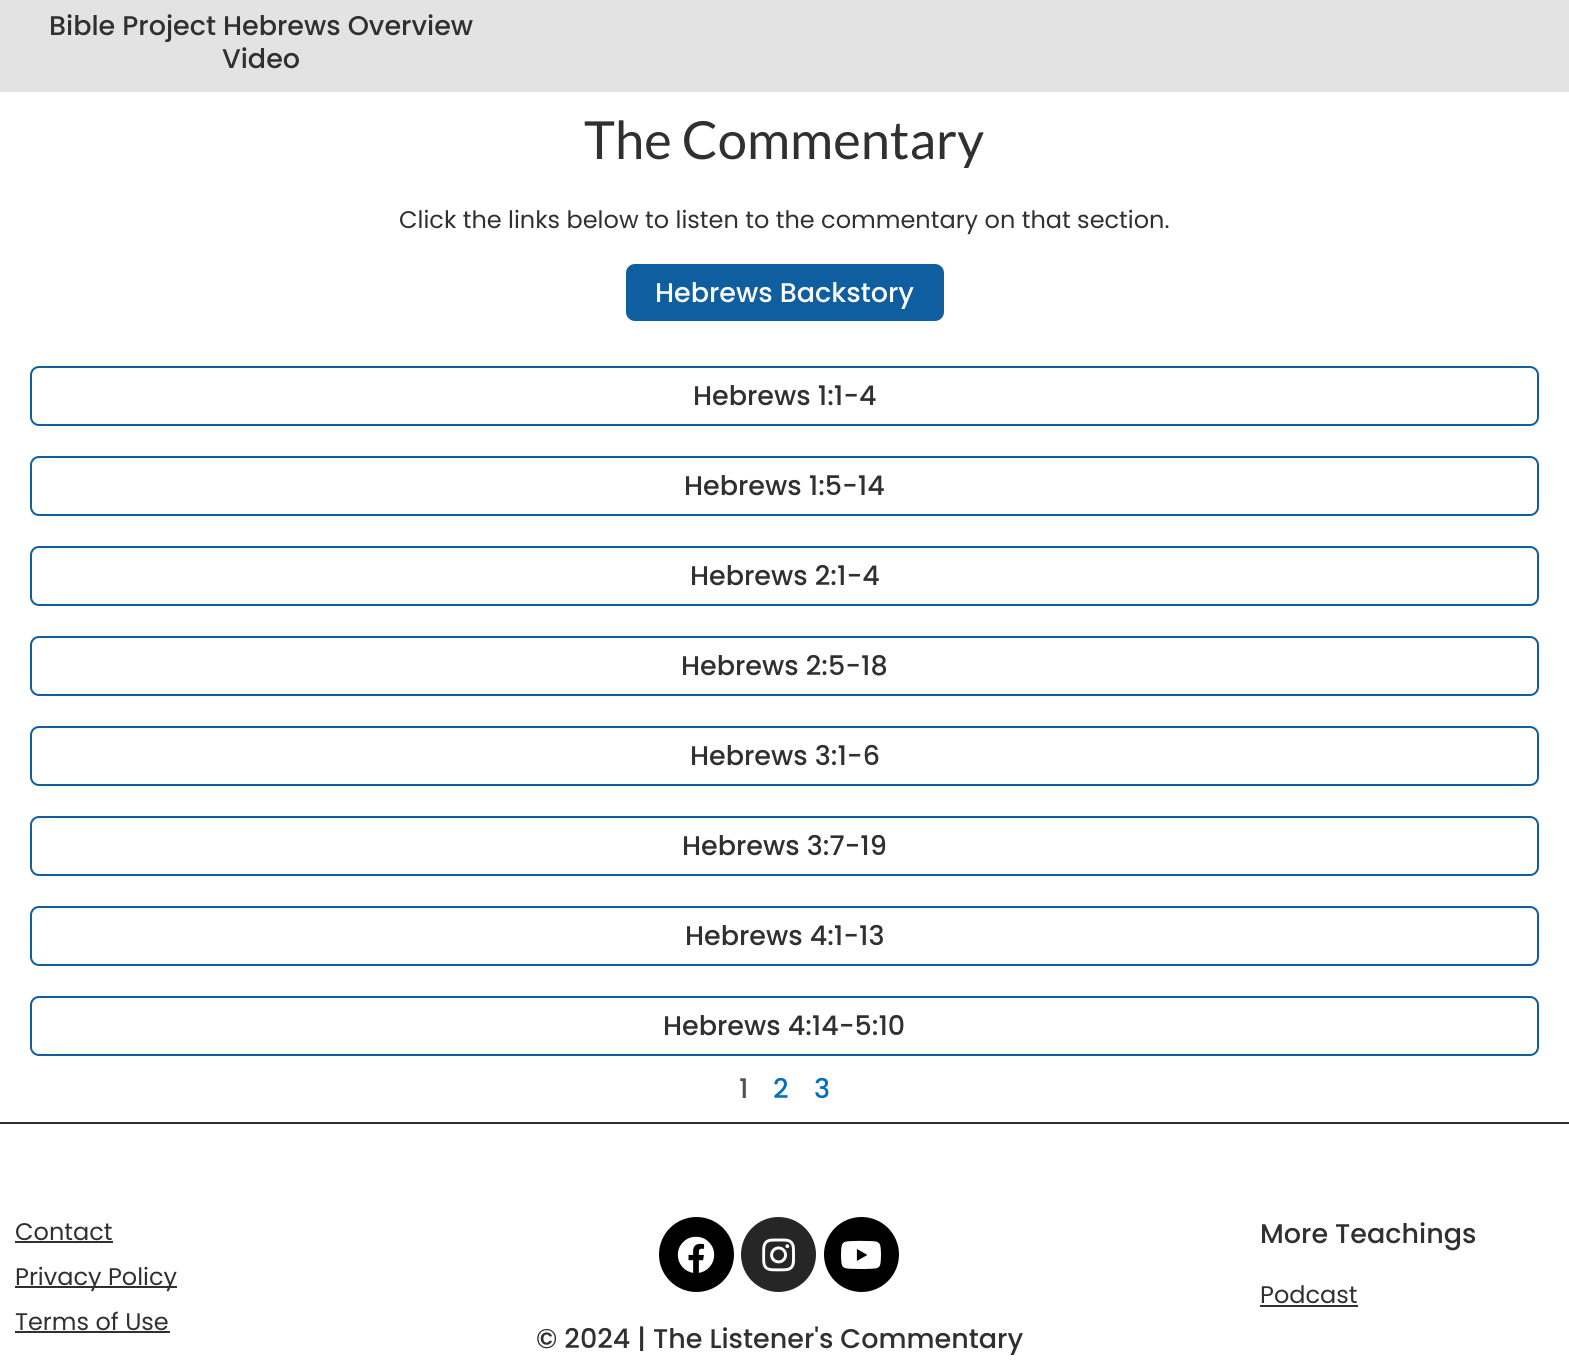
import math
import cairo

surface = cairo.ImageSurface(cairo.FORMAT_RGB24, 1569, 1371)
c = cairo.Context(surface)
options = cairo.FontOptions()
options.set_hint_metrics(cairo.HINT_METRICS_OFF)
options.set_hint_style(cairo.HINT_STYLE_NONE)
c.set_font_options(options)
c.set_miter_limit(4)
def C(code):
 c.set_source_rgb(*(v / 255 for v in bytes.fromhex(code[-6:])))
def F(family, size, italic, bold):
 c.select_font_face(family, cairo.FONT_SLANT_ITALIC if italic else cairo.FONT_SLANT_NORMAL, cairo.FONT_WEIGHT_BOLD if bold else cairo.FONT_WEIGHT_NORMAL)
 c.set_font_size(size)
def T(x, y, s):
 c.move_to(x, y)
 c.show_text(s)
def R(x, y, w, h):
 c.rectangle(x, y, w, h)
 c.fill()
def Q(x, y, w, h, r):
 c.new_sub_path()
 for i, (u, v) in enumerate([(x + w - r, y + h - r), (x + r, y + h - r), (x + r, y + r), (x + w - r, y + r)]):
  c.arc(u, v, r, i * math.pi / 2, (i + 1) * math.pi / 2)
 c.close_path()
def I(path, x, y, w, h):
 c.save()
 c.set_source_surface(cairo.ImageSurface.create_from_png(path), x, y)
 c.rectangle(x, y, w, h)
 c.fill()
 c.restore()
C('ffffff')
c.paint()
C('e3e3e3')
R(0,0,1569,92)
F('Poppins Medium',27,0,0)
C('303030')
T(49,35,'Bible Project Hebrews Overview')
T(222,68,'Video')
F('Lato',52.5,0,0)
T(584,159,'The Commentary')
F('Poppins',24,0,0)
T(399,228,'Click the links below to listen to the commentary on that section.')
C('0f5ea0')
Q(626,264,318,57,9)
c.fill()
F('Poppins Medium',27,0,0)
C('ffffff')
T(655,302,'Hebrews Backstory')
Q(31,367,1507,58,8)
C('0f5ea0')
c.stroke()
C('303030')
T(693,405,'Hebrews 1:1-4')
Q(31,457,1507,58,8)
C('0f5ea0')
c.stroke()
C('303030')
T(684,495,'Hebrews 1:5-14')
Q(31,547,1507,58,8)
C('0f5ea0')
c.stroke()
C('303030')
T(690,585,'Hebrews 2:1-4')
Q(31,637,1507,58,8)
C('0f5ea0')
c.stroke()
C('303030')
T(681,675,'Hebrews 2:5-18')
Q(31,727,1507,58,8)
C('0f5ea0')
c.stroke()
C('303030')
T(690,765,'Hebrews 3:1-6')
Q(31,817,1507,58,8)
C('0f5ea0')
c.stroke()
C('303030')
T(682,855,'Hebrews 3:7-19')
Q(31,907,1507,58,8)
C('0f5ea0')
c.stroke()
C('303030')
T(685,945,'Hebrews 4:1-13')
Q(31,997,1507,58,8)
C('0f5ea0')
c.stroke()
C('303030')
T(663,1035,'Hebrews 4:14-5:10')
C('4b4f58')
T(739,1098,'1')
C('0170b9')
T(773,1098,'2')
T(814,1098,'3')
C('303030')
R(0,1122,1569,2)
F('Poppins',24,0,0)
T(15,1240,'Contact')
R(15,1241,98,2)
R(15,1286,162,2)
T(15,1285,'Privacy Policy')
T(15,1330,'Terms of Use')
R(15,1331,155,2)
F('Poppins Medium',27,0,0)
T(1260,1243,'More Teachings')
F('Poppins',24,0,0)
T(1260,1303,'Podcast')
R(1260,1305,98,2)
C('000000')
c.new_path()
c.arc(696.5,1254.5,37.5,0,2 * math.pi)
c.fill()
I('1.png',677,1236,38,37)
C('262626')
c.arc(778.5,1254.5,37.5,0,2 * math.pi)
c.fill()
I('2.png',762,1238,33,34)
C('000000')
c.arc(861.5,1254.5,37.5,0,2 * math.pi)
c.fill()
I('3.png',841,1240,40,29)
F('Poppins Medium',27,0,0)
C('303030')
T(536,1348,'© 2024 | The Listener\'s Commentary')
surface.write_to_png('o.png')
